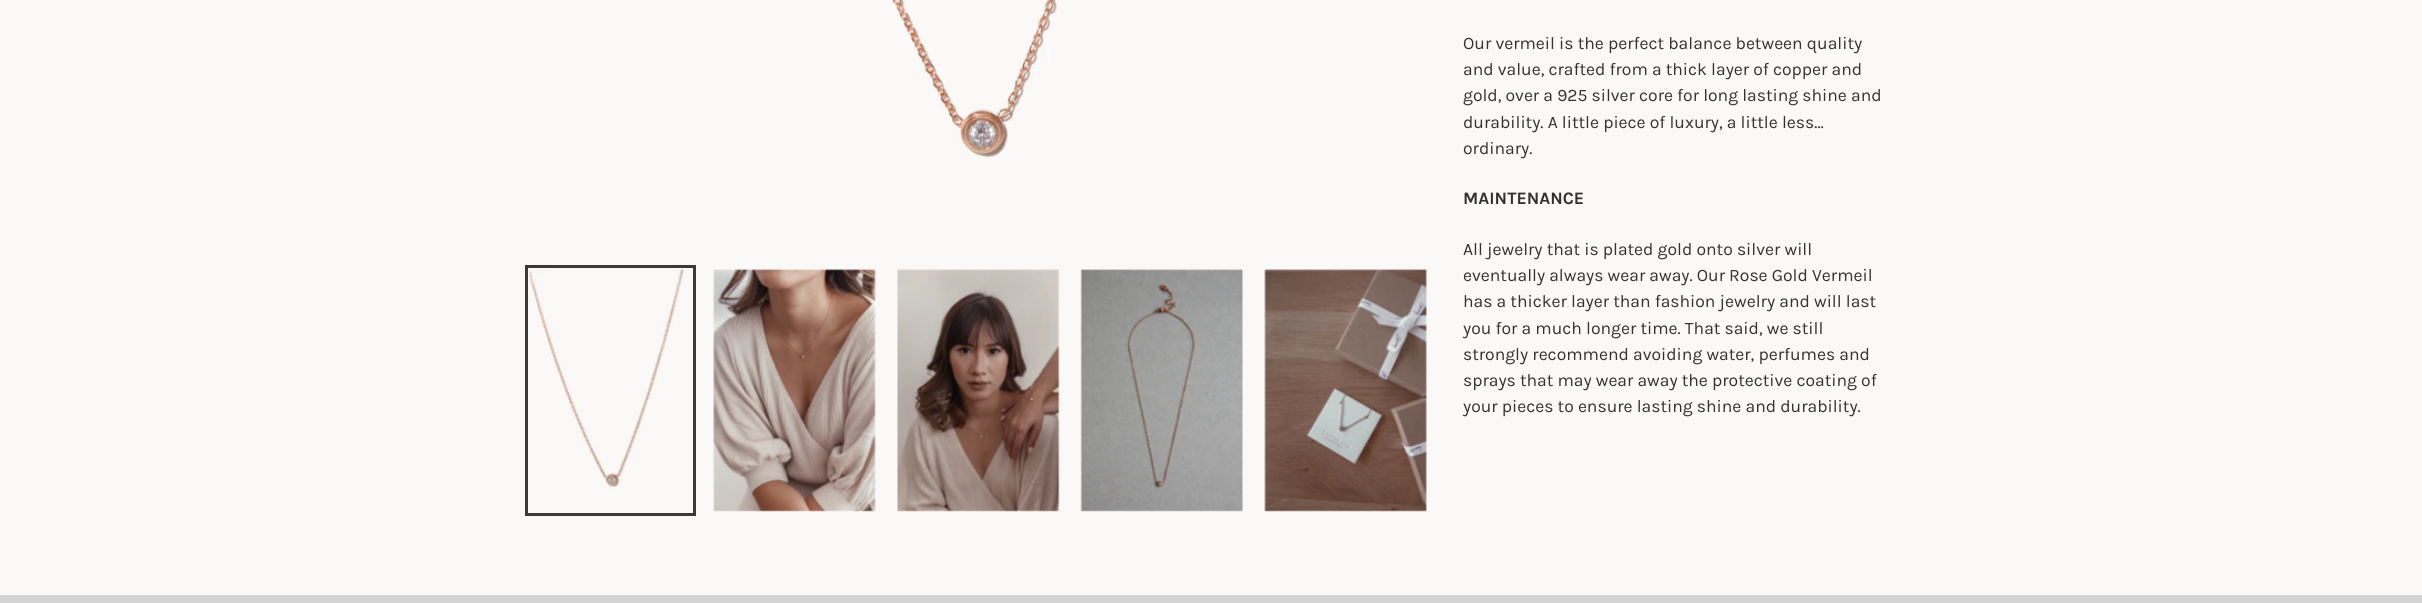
import math
import cairo

surface = cairo.ImageSurface(cairo.FORMAT_RGB24, 2422, 603)
c = cairo.Context(surface)
options = cairo.FontOptions()
options.set_hint_metrics(cairo.HINT_METRICS_OFF)
options.set_hint_style(cairo.HINT_STYLE_NONE)
c.set_font_options(options)
c.set_miter_limit(4)
def C(code):
 c.set_source_rgb(*(v / 255 for v in bytes.fromhex(code[-6:])))
def F(family, size, italic, bold):
 c.select_font_face(family, cairo.FONT_SLANT_ITALIC if italic else cairo.FONT_SLANT_NORMAL, cairo.FONT_WEIGHT_BOLD if bold else cairo.FONT_WEIGHT_NORMAL)
 c.set_font_size(size)
def T(x, y, s):
 c.move_to(x, y)
 c.show_text(s)
def R(x, y, w, h):
 c.rectangle(x, y, w, h)
 c.fill()
def I(path, x, y, w, h):
 c.save()
 c.set_source_surface(cairo.ImageSurface.create_from_png(path), x, y)
 c.rectangle(x, y, w, h)
 c.fill()
 c.restore()
C('faf9f7')
c.paint()
I('1.png',891,0,169,158)
c.rectangle(526.5,266.5,168,248)
C('3a3a3a')
c.set_line_width(3)
c.stroke()
I('2.png',529,269,155,220)
I('3.png',713,269,163,243)
I('4.png',897,269,163,243)
I('5.png',1080,269,163,243)
I('6.png',1264,269,163,243)
F('Karla',17.5,0,0)
C('333232')
T(1463,49,'Our vermeil is the perfect balance between quality')
T(1463,75,'and value, crafted from a thick layer of copper and')
T(1463,101,'gold, over a 925 silver core for long lasting shine and')
T(1463,128,'durability. A little piece of luxury, a little less…')
T(1463,154,'ordinary.')
F('Karla',17.5,0,1)
T(1463,204,'MAINTENANCE')
F('Karla',17.5,0,0)
T(1463,255,'All jewelry that is plated gold onto silver will')
T(1463,281,'eventually always wear away. Our Rose Gold Vermeil')
T(1463,307,'has a thicker layer than fashion jewelry and will last')
T(1463,334,'you for a much longer time. That said, we still')
T(1463,360,'strongly recommend avoiding water, perfumes and')
T(1463,386,'sprays that may wear away the protective coating of')
T(1463,412,'your pieces to ensure lasting shine and durability.')
C('d4d4d4')
R(0,595,2422,8)
surface.write_to_png('o.png')
